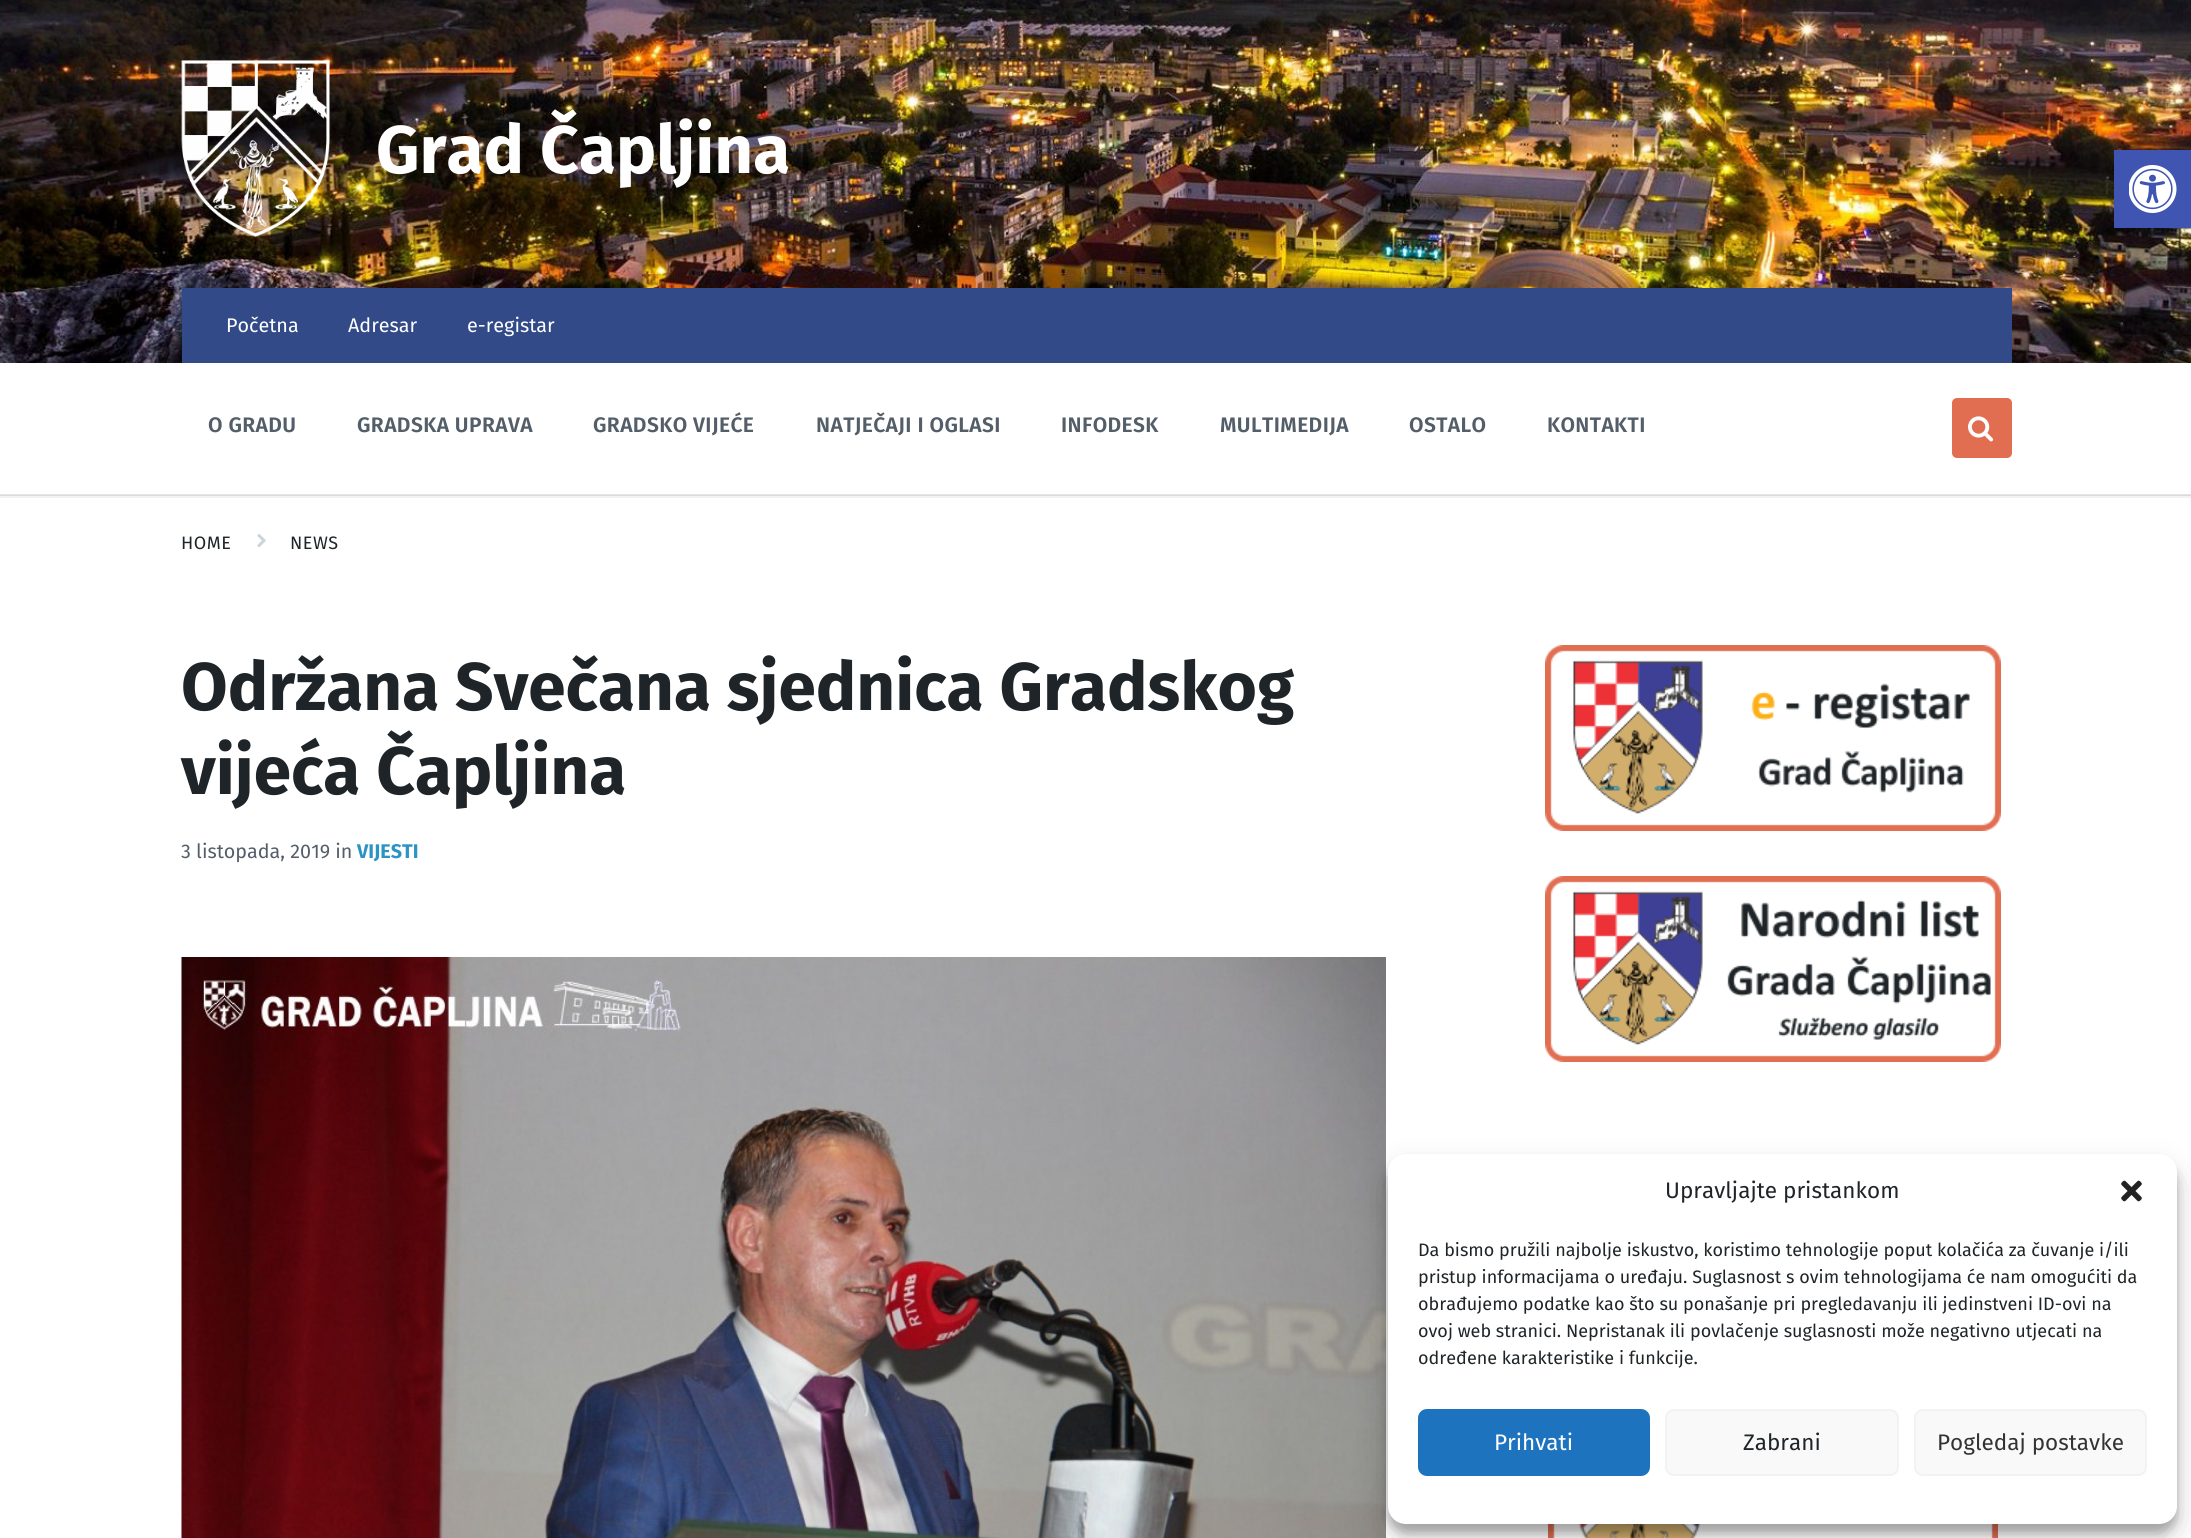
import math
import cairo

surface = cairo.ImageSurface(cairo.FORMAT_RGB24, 2191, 1538)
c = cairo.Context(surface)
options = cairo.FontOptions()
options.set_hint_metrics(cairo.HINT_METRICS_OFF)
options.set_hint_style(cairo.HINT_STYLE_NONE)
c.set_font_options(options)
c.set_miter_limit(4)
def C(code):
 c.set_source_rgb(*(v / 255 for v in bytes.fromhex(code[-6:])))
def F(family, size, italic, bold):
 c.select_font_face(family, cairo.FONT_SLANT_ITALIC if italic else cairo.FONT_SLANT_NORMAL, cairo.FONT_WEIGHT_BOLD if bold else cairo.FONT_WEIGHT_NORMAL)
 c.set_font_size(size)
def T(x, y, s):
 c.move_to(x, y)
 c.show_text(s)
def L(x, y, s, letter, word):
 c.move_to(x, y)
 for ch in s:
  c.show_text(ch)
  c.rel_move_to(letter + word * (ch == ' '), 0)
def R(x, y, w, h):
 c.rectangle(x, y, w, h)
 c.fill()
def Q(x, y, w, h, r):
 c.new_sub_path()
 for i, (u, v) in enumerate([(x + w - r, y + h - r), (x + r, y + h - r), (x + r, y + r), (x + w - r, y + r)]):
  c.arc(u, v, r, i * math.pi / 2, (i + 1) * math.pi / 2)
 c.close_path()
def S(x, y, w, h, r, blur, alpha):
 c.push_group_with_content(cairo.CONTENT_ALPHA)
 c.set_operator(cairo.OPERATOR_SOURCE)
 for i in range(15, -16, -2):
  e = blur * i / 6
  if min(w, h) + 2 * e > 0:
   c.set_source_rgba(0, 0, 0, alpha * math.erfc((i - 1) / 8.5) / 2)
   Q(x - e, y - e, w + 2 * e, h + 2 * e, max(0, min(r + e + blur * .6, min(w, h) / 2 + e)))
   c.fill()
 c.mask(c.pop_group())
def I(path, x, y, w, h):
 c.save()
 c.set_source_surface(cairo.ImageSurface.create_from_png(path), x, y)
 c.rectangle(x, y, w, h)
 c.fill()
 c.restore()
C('ffffff')
c.paint()
c.rectangle(-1.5,361.5,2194,135)
C('f2f2f2')
c.set_line_width(3)
c.stroke()
I('1.png',0,0,2191,363)
I('2.png',181,60,149,177)
F('Fira Sans',67.5,0,1)
C('ffffff')
T(376,173,'Grad Čapljina')
C('324a88')
R(182,288,1830,75)
F('Fira Sans',19.75,0,0)
C('ffffff')
T(226,332,'Početna')
T(348,332,'Adresar')
T(467,332,'e-registar')
c.set_source_rgba(0,0,0,0.1)
R(0,494,2191,2)
F('Fira Sans SemiBold',21,0,0)
C('545e69')
L(208,432,'O GRADU',.4,0)
L(357,432,'GRADSKA UPRAVA',.4,0)
L(593,432,'GRADSKO VIJEĆE',.4,0)
L(816,432,'NATJEČAJI I OGLASI',.4,0)
L(1061,432,'INFODESK',.4,0)
L(1220,432,'MULTIMEDIJA',.4,0)
L(1409,432,'OSTALO',.4,0)
L(1547,432,'KONTAKTI',.4,0)
C('e16e51')
Q(1952,398,60,60,5)
c.fill()
I('3.png',1968,416,26,26)
F('Fira Sans',18,0,0)
C('1e2427')
L(181,549,'HOME',.5,0)
I('4.png',257,533,9,15)
L(290,549,'NEWS',.5,0)
F('Fira Sans',67.5,0,1)
T(181,710,'Održana Svečana sjednica Gradskog')
T(181,794,'vijeća Čapljina')
F('Fira Sans',19.75,0,0)
C('545e69')
T(181,858,'3 listopada, 2019 in')
F('Fira Sans',19.75,0,1)
C('2d93c5')
T(357,858,'VIJESTI')
I('5.png',181,957,1205,581)
I('6.png',1545,645,456,186)
I('7.png',1545,876,456,186)
I('8.png',1548,1524,450,14)
C('000000')
S(2114,150,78,78,0,7.5,.1)
C('4054b2')
R(2114,150,77,78)
I('9.png',2129,165,48,48)
C('000000')
S(1388,1163,789,370,18,4.5,.23)
S(1388,1169,789,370,18,15,.19)
C('ffffff')
Q(1388,1154,789,370,18)
c.fill()
F('Fira Sans',22.5,0,0)
C('1e2427')
T(1665,1198,'Upravljajte pristankom')
I('10.png',2121,1180,21,22)
F('Fira Sans',18,0,0)
T(1418,1256,'Da bismo pružili najbolje iskustvo, koristimo tehnologije poput kolačića za čuvanje i/ili')
T(1418,1283,'pristup informacijama o uređaju. Suglasnost s ovim tehnologijama će nam omogućiti da')
T(1418,1310,'obrađujemo podatke kao što su ponašanje pri pregledavanju ili jedinstveni ID-ovi na')
T(1418,1337,'ovoj web stranici. Nepristanak ili povlačenje suglasnosti može negativno utjecati na')
T(1418,1364,'određene karakteristike i funkcije.')
C('1e73be')
Q(1419,1410,230,65,8)
c.fill_preserve()
c.set_line_width(2)
c.stroke()
F('Fira Sans',22.5,0,0)
C('ffffff')
T(1494,1450,'Prihvati')
C('f9f9f9')
Q(1666,1410,232,65,8)
c.fill_preserve()
C('f2f2f2')
c.stroke()
C('1e2427')
T(1743,1450,'Zabrani')
C('f9f9f9')
Q(1915,1410,231,65,8)
c.fill_preserve()
C('f2f2f2')
c.stroke()
C('333333')
T(1937,1450,'Pogledaj postavke')
surface.write_to_png('o.png')
